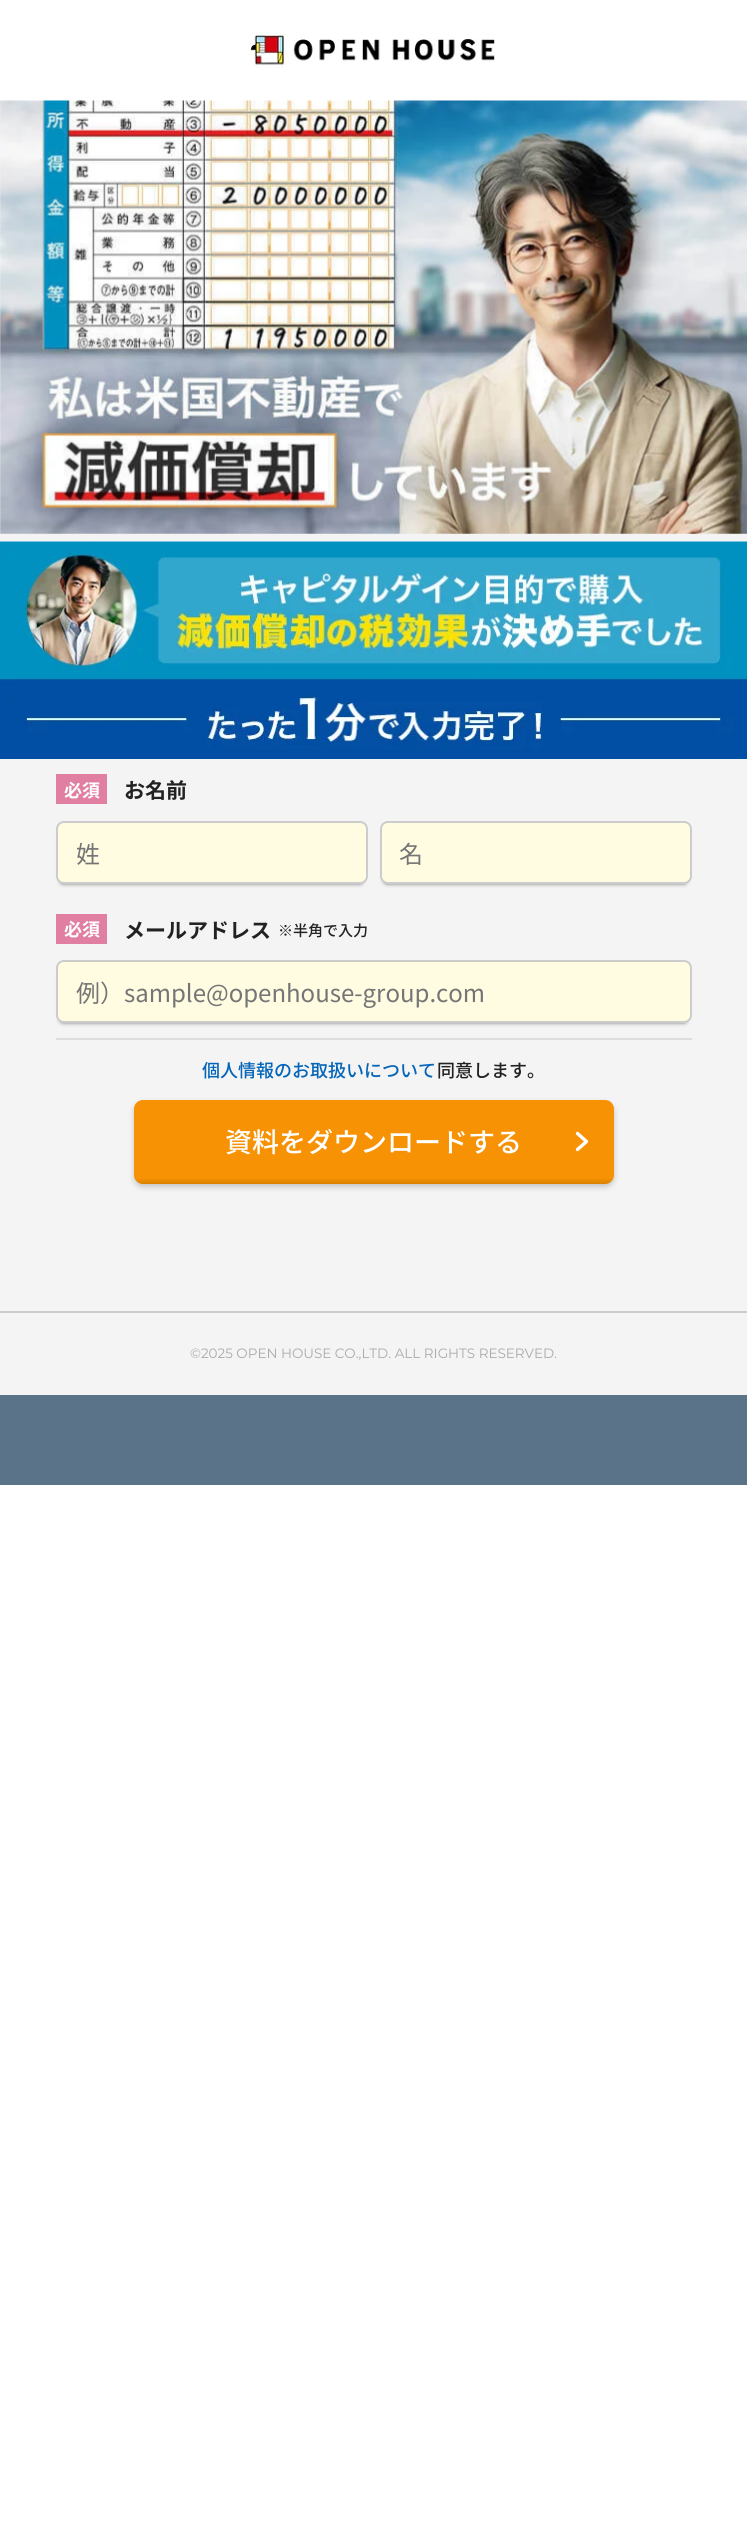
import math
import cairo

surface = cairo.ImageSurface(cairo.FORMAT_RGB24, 747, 2541)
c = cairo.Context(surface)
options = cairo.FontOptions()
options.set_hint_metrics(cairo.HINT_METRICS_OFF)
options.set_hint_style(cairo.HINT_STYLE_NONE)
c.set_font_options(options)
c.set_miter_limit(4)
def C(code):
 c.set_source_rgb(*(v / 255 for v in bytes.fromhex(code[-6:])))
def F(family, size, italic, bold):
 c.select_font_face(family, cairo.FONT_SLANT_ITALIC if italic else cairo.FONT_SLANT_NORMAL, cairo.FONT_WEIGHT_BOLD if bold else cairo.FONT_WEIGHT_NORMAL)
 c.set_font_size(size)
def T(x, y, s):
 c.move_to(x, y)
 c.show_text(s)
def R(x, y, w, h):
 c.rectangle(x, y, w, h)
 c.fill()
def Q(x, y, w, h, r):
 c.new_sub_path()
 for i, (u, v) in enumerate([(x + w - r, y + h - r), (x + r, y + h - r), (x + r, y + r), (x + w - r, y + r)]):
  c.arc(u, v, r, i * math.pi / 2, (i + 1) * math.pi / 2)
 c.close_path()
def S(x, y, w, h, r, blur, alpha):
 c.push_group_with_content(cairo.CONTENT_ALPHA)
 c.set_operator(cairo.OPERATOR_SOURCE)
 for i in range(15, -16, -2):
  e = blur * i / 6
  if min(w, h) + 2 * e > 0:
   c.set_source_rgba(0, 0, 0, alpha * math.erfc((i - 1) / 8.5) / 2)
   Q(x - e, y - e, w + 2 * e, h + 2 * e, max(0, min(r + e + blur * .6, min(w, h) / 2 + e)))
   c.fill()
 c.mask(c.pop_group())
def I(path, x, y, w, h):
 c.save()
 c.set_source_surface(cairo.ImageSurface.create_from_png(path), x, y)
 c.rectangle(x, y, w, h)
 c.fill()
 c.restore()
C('ffffff')
c.paint()
I('1.png',250,30,246,38)
C('f4f4f4')
R(0,101,747,1210)
I('2.png',0,100,747,434)
I('3.png',0,541,747,218)
C('e07fa1')
R(56,774,51,30)
F('Noto Sans JP',18,0,1)
C('ffffff')
T(64,797,'必須')
F('Noto Sans JP',21,0,1)
C('222222')
T(124,798,'お名前')
C('000000')
S(60,830,303,54,3,2,.5)
C('fffce2')
Q(57,822,310,61,7)
c.fill_preserve()
C('cccccc')
c.stroke()
F('Noto Sans JP',24,0,0)
C('757575')
T(76,863,'姓')
C('000000')
S(384,830,303,54,3,2,.5)
C('fffce2')
Q(381,822,310,61,7)
c.fill_preserve()
C('cccccc')
c.stroke()
C('757575')
T(399,863,'名')
C('dddddd')
R(56,1038,636,2)
C('e07fa1')
R(56,914,51,30)
F('Noto Sans JP',18,0,1)
C('ffffff')
T(64,936,'必須')
F('Noto Sans JP',21,0,1)
C('222222')
T(124,938,'メールアドレス')
F('Noto Sans JP Medium',15,0,0)
T(278,936,'※半角で入力')
C('000000')
S(60,969,627,54,3,2,.5)
C('fffce2')
Q(57,961,634,61,7)
c.fill_preserve()
C('cccccc')
c.stroke()
F('Noto Sans JP',24,0,0)
C('757575')
T(76,1002,'例）sample@openhouse-group.com')
F('Noto Sans JP Medium',18,0,0)
C('0465b9')
T(202,1077,'個人情報のお取扱いについて')
C('222222')
T(437,1077,'同意します。')
C('000000')
S(134,1103,480,84,9,3,.2)
gradient = cairo.LinearGradient(374,1100,374,1184)
gradient.add_color_stop_rgba(0,0.965,0.573,0.016,1)
gradient.add_color_stop_rgba(.93,0.965,0.573,0.016,1)
gradient.add_color_stop_rgba(1,0.855,0.502,0,1)
c.set_source(gradient)
Q(134,1100,480,84,9)
c.fill()
c.new_path()
c.move_to(577.5,1133.5)
c.line_to(586.5,1141.5)
c.line_to(577.5,1149.5)
C('ffffff')
c.set_line_width(3.4)
c.set_line_cap(cairo.LINE_CAP_ROUND)
c.set_line_join(cairo.LINE_JOIN_ROUND)
c.stroke()
F('Noto Sans JP Medium',27,0,0)
T(225,1152,'資料をダウンロードする')
C('5b7389')
R(0,1395,747,90)
C('f4f4f4')
R(0,1313,747,82)
C('cccccc')
R(0,1311,747,2)
F('Montserrat Thin',13.5,0,0)
C('aaaaaa')
T(190,1358,'©2025 OPEN HOUSE CO.,LTD. ALL RIGHTS RESERVED.')
surface.write_to_png('o.png')
